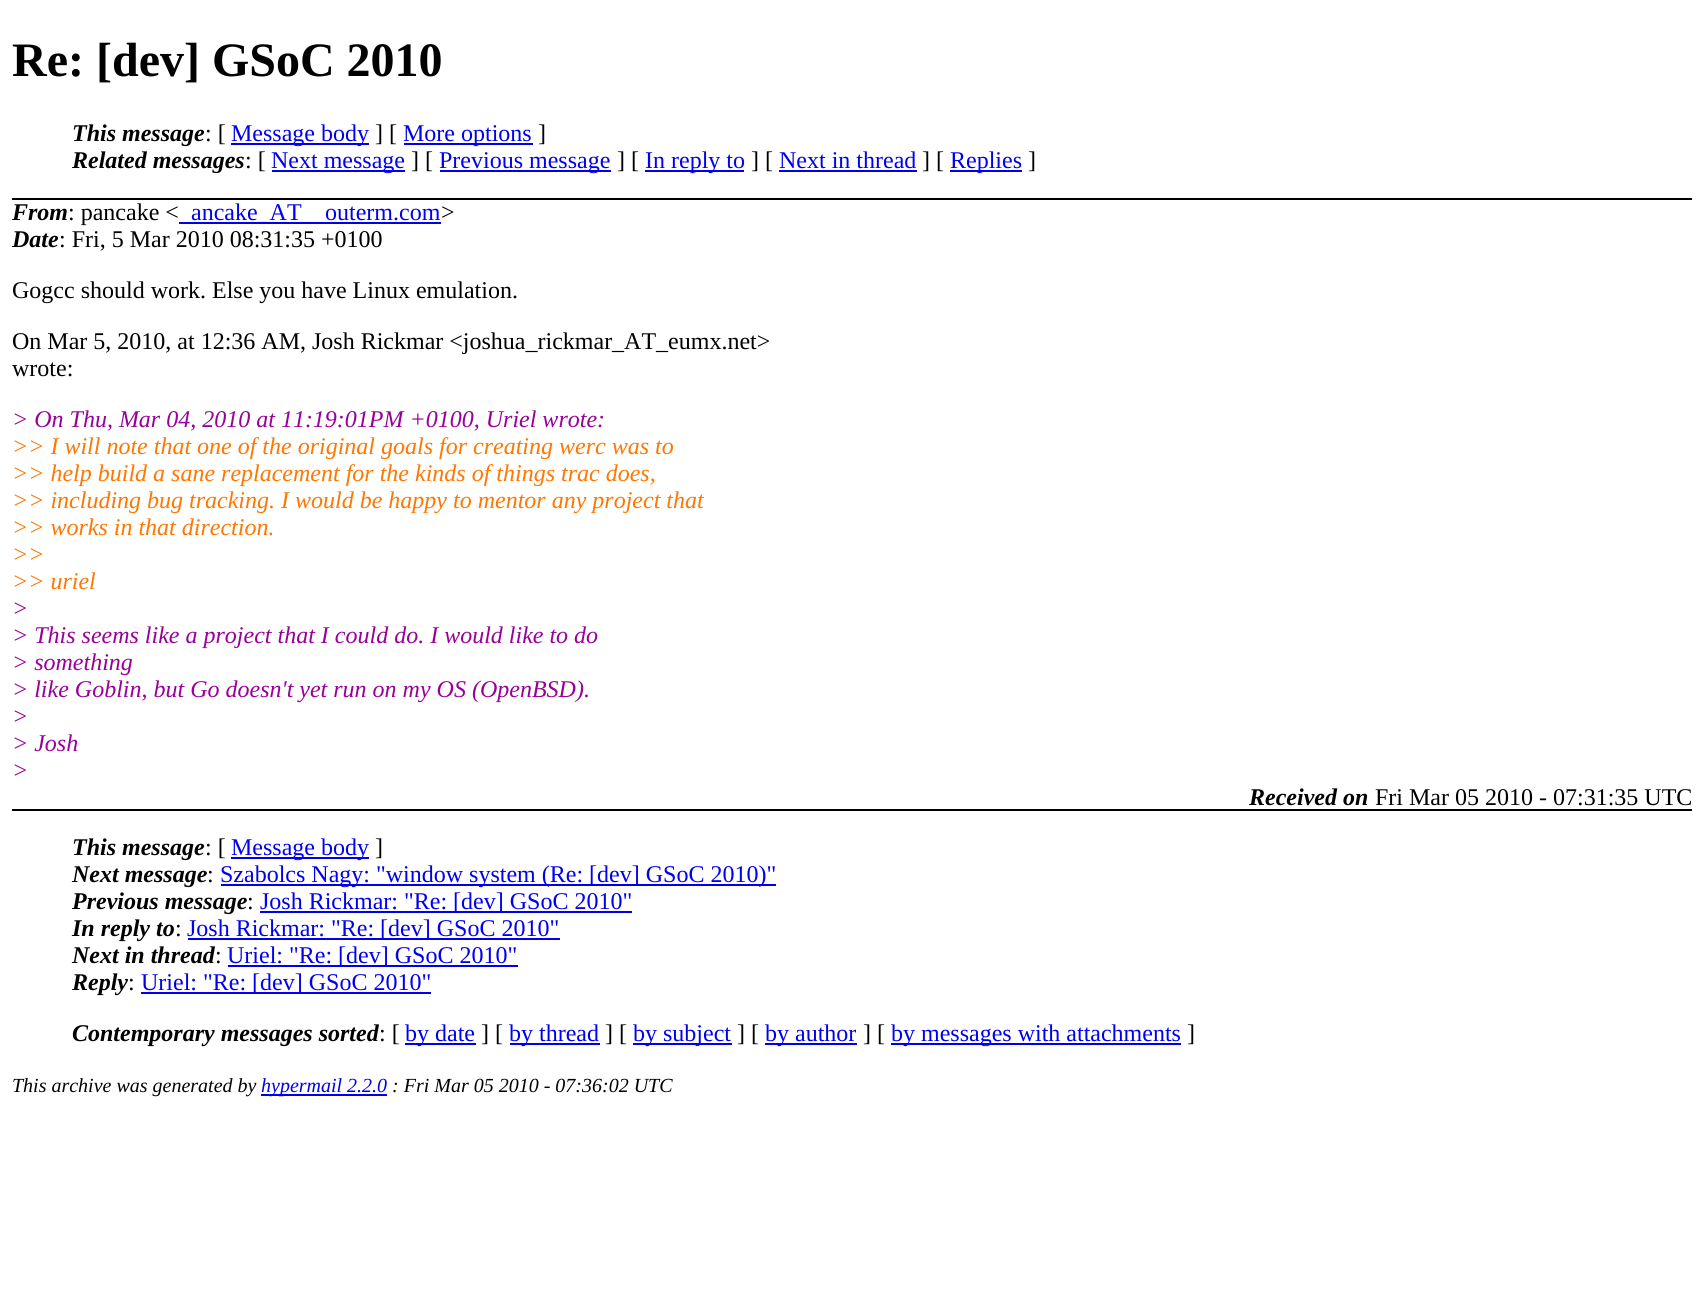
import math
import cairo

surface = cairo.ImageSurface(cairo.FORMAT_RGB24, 1703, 1292)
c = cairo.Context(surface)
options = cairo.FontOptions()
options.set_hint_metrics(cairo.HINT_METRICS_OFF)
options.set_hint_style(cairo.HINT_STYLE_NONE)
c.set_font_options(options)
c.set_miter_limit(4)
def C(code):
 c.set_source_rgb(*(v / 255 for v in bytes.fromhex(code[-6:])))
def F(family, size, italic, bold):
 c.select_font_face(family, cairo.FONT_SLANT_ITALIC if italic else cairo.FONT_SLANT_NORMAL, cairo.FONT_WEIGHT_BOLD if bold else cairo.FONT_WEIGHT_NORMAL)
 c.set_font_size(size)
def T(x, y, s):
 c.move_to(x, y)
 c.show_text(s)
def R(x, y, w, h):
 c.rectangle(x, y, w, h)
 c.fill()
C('ffffff')
c.paint()
C('000000')
R(12,198,1680,2)
F('Liberation Serif',48,0,1)
T(12,76,'Re: [dev] GSoC 2010')
F('Liberation Serif',24,1,1)
T(72,141,'This message')
F('Liberation Serif',24,0,0)
T(205,141,': [')
C('0000ee')
R(231,143,138,2)
T(231,141,'Message body')
C('000000')
T(375,141,'] [')
C('0000ee')
R(404,143,129,2)
T(403,141,'More options')
C('000000')
T(538,141,']')
F('Liberation Serif',24,1,1)
T(72,168,'Related messages')
F('Liberation Serif',24,0,0)
T(245,168,': [')
C('0000ee')
R(272,170,133,2)
T(271,168,'Next message')
C('000000')
T(411,168,'] [')
C('0000ee')
R(440,170,171,2)
T(439,168,'Previous message')
C('000000')
T(617,168,'] [')
C('0000ee')
R(645,170,99,2)
T(645,168,'In reply to')
C('000000')
T(751,168,'] [')
C('0000ee')
T(779,168,'Next in thread')
R(779,170,138,2)
C('000000')
T(922,168,'] [')
C('0000ee')
R(950,170,72,2)
T(950,168,'Replies')
C('000000')
T(1028,168,']')
F('Liberation Serif',24,1,1)
T(12,220,'From')
F('Liberation Serif',24,0,0)
T(68,220,': pancake <')
C('0000ee')
R(179,222,262,2)
T(191,220,'ancake_AT')
T(325,220,'outerm.com')
C('000000')
T(441,220,'>')
F('Liberation Serif',24,1,1)
T(12,247,'Date')
F('Liberation Serif',24,0,0)
T(59,247,': Fri, 5 Mar 2010 08:31:35 +0100')
T(12,298,'Gogcc should work. Else you have Linux emulation.')
T(12,349,'On Mar 5, 2010, at 12:36 AM, Josh Rickmar <joshua_rickmar_AT_eumx.net>')
T(12,376,'wrote:')
F('Liberation Serif',24,1,0)
C('990099')
T(12,427,'> On Thu, Mar 04, 2010 at 11:19:01PM +0100, Uriel wrote:')
C('ff7700')
T(12,454,'>> I will note that one of the original goals for creating werc was to')
T(12,481,'>> help build a sane replacement for the kinds of things trac does,')
T(12,508,'>> including bug tracking. I would be happy to mentor any project that')
T(12,535,'>> works in that direction.')
T(12,562,'>>')
T(12,589,'>> uriel')
C('990099')
T(12,616,'>')
T(12,643,'> This seems like a project that I could do. I would like to do')
T(12,670,'> something')
T(12,697,'> like Goblin, but Go doesn\'t yet run on my OS (OpenBSD).')
T(12,724,'>')
T(12,751,'> Josh')
T(12,778,'>')
F('Liberation Serif',24,1,1)
C('000000')
T(1249,805,'Received on')
F('Liberation Serif',24,0,0)
T(1375,805,'Fri Mar 05 2010 - 07:31:35 UTC')
R(12,809,1680,2)
F('Liberation Serif',24,1,1)
T(72,855,'This message')
F('Liberation Serif',24,0,0)
T(205,855,': [')
C('0000ee')
R(231,857,138,2)
T(231,855,'Message body')
C('000000')
T(375,855,']')
F('Liberation Serif',24,1,1)
T(72,882,'Next message')
F('Liberation Serif',24,0,0)
T(207,882,':')
C('0000ee')
R(221,884,555,2)
T(220,882,'Szabolcs Nagy: "window system (Re: [dev] GSoC 2010)"')
F('Liberation Serif',24,1,1)
C('000000')
T(72,909,'Previous message')
F('Liberation Serif',24,0,0)
T(247,909,':')
C('0000ee')
R(260,911,372,2)
T(260,909,'Josh Rickmar: "Re: [dev] GSoC 2010"')
F('Liberation Serif',24,1,1)
C('000000')
T(72,936,'In reply to')
F('Liberation Serif',24,0,0)
T(175,936,':')
C('0000ee')
R(188,938,372,2)
T(187,936,'Josh Rickmar: "Re: [dev] GSoC 2010"')
F('Liberation Serif',24,1,1)
C('000000')
T(72,963,'Next in thread')
F('Liberation Serif',24,0,0)
T(215,963,':')
C('0000ee')
R(228,965,290,2)
T(227,963,'Uriel: "Re: [dev] GSoC 2010"')
F('Liberation Serif',24,1,1)
C('000000')
T(72,990,'Reply')
F('Liberation Serif',24,0,0)
T(128,990,':')
C('0000ee')
R(141,992,290,2)
T(141,990,'Uriel: "Re: [dev] GSoC 2010"')
F('Liberation Serif',24,1,1)
C('000000')
T(72,1041,'Contemporary messages sorted')
F('Liberation Serif',24,0,0)
T(379,1041,': [')
C('0000ee')
R(405,1043,71,2)
T(405,1041,'by date')
C('000000')
T(481,1041,'] [')
C('0000ee')
R(510,1043,90,2)
T(509,1041,'by thread')
C('000000')
T(605,1041,'] [')
C('0000ee')
R(633,1043,99,2)
T(633,1041,'by subject')
C('000000')
T(737,1041,'] [')
C('0000ee')
R(765,1043,92,2)
T(765,1041,'by author')
C('000000')
T(863,1041,'] [')
C('0000ee')
R(891,1043,290,2)
T(891,1041,'by messages with attachments')
C('000000')
T(1187,1041,']')
F('Liberation Serif',20,1,0)
T(12,1092,'This archive was generated by')
C('0000ee')
R(261,1094,126,2)
T(261,1092,'hypermail 2.2.0')
C('000000')
T(392,1092,': Fri Mar 05 2010 - 07:36:02 UTC')
surface.write_to_png('o.png')
